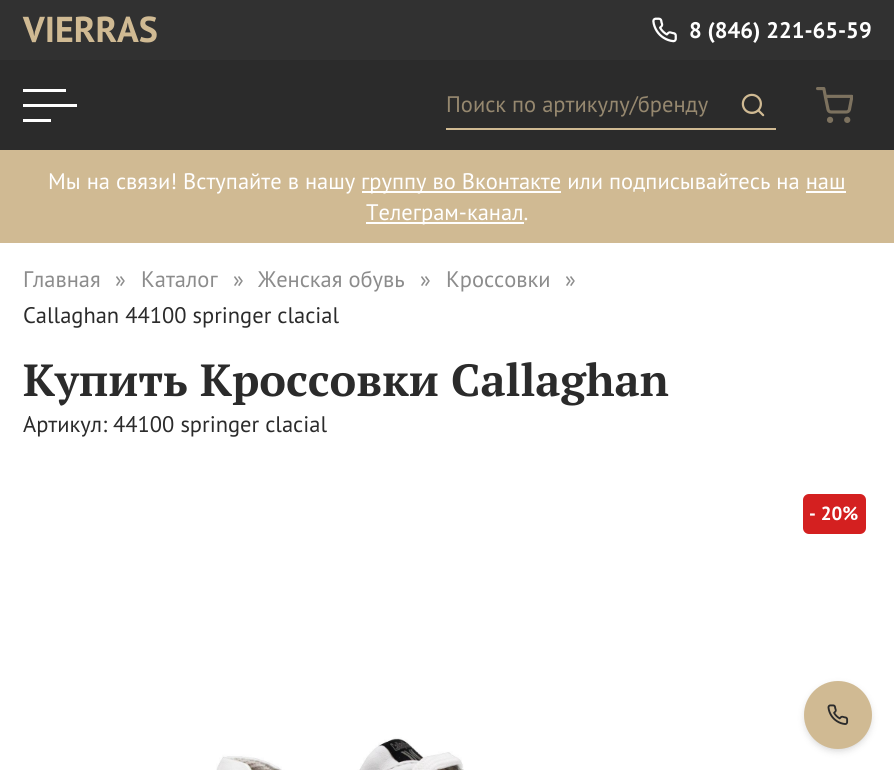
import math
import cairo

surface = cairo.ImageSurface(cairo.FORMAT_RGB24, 894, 770)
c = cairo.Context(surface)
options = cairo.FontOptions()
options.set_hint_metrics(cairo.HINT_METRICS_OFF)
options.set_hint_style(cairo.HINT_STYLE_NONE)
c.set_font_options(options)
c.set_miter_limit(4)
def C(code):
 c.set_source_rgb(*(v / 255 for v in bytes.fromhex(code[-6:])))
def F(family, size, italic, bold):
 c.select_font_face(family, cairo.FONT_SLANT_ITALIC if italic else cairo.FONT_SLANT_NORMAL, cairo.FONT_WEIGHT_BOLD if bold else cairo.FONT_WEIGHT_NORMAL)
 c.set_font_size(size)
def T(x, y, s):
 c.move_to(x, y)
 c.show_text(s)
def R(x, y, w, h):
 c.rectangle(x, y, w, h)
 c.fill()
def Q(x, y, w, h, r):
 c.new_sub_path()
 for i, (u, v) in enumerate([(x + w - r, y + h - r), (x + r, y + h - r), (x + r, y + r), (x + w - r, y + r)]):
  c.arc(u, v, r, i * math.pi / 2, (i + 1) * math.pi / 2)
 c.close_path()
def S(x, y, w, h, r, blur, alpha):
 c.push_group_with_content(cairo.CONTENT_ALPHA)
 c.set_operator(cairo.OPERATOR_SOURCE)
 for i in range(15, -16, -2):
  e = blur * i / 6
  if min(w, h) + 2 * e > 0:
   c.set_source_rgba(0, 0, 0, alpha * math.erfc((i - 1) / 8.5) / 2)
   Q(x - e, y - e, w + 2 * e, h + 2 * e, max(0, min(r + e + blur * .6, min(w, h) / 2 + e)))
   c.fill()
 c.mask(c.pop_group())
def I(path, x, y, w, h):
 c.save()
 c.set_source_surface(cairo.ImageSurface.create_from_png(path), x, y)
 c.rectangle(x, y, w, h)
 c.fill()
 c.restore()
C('ffffff')
c.paint()
C('2b2b2b')
R(0,60,894,90)
C('313131')
R(0,0,894,60)
F('PT Sans',36,0,1)
C('d0ba93')
T(23,42,'VIERRAS')
I('1.png',652,17,25,26)
F('PT Sans',22.5,0,1)
C('ffffff')
T(689,38,'8 (846) 221-65-59')
R(23,89,43,3)
R(23,104,54,3)
R(23,119,28,3)
C('d0ba93')
R(446,128,330,2)
F('PT Sans',22.5,0,0)
C('96886f')
T(446,112,'Поиск по артикулу/бренду')
I('2.png',741,93,24,24)
I('3.png',816,87,37,36)
C('d0ba93')
R(0,150,894,93)
C('ffffff')
T(48,189,'Мы на связи! Вступайте в нашу')
R(362,191,199,2)
T(361,189,'группу во Вконтакте или подписывайтесь на наш')
R(366,222,158,2)
T(366,220,'Телеграм-канал.')
R(806,191,40,2)
C('8c8c8c')
T(23,287,'Главная')
T(115,287,'»')
T(141,287,'Каталог')
T(233,287,'»')
T(258,287,'Женская обувь')
T(420,287,'»')
T(446,287,'Кроссовки')
T(565,287,'»')
C('2b2b2b')
T(23,323,'Callaghan 44100 springer сlacial')
F('PT Serif',45,0,1)
T(23,396,'Купить Кроссовки Callaghan')
F('PT Sans',22.5,0,0)
T(23,432,'Артикул: 44100 springer сlacial')
C('d42020')
Q(803,494,63,40,6)
c.fill()
F('PT Sans',19,0,1)
C('ffffff')
T(809,520,'- 20%')
I('4.png',216,737,248,33)
C('000000')
S(806,686,64,64,32,4,.2)
C('d0ba93')
c.arc(838,715,34,0,2 * math.pi)
c.fill()
I('5.png',827,704,22,21)
surface.write_to_png('o.png')
